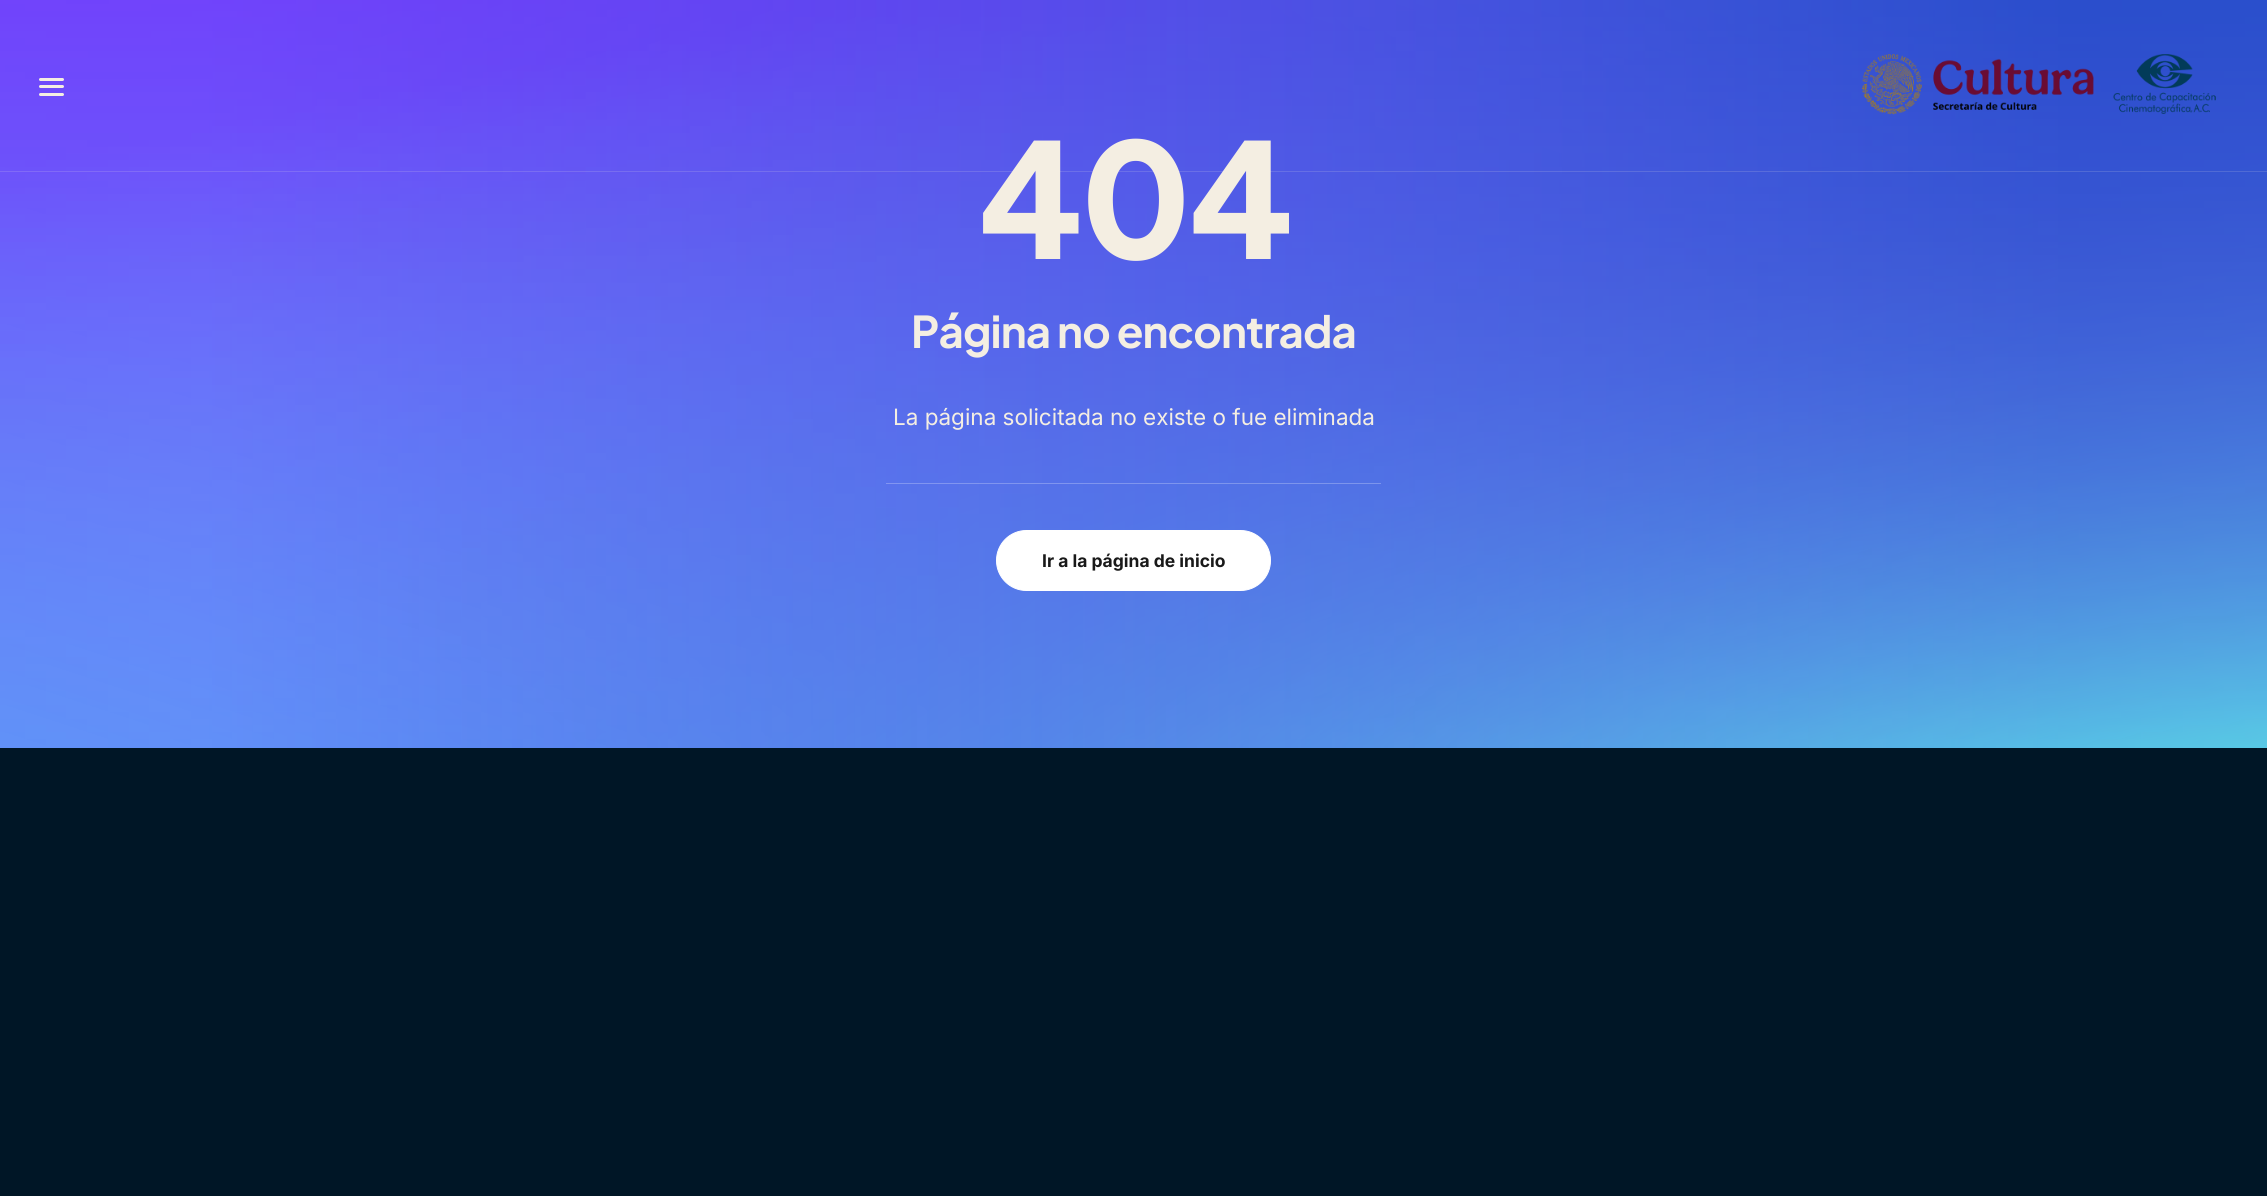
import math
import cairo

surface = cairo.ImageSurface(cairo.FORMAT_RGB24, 2267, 1196)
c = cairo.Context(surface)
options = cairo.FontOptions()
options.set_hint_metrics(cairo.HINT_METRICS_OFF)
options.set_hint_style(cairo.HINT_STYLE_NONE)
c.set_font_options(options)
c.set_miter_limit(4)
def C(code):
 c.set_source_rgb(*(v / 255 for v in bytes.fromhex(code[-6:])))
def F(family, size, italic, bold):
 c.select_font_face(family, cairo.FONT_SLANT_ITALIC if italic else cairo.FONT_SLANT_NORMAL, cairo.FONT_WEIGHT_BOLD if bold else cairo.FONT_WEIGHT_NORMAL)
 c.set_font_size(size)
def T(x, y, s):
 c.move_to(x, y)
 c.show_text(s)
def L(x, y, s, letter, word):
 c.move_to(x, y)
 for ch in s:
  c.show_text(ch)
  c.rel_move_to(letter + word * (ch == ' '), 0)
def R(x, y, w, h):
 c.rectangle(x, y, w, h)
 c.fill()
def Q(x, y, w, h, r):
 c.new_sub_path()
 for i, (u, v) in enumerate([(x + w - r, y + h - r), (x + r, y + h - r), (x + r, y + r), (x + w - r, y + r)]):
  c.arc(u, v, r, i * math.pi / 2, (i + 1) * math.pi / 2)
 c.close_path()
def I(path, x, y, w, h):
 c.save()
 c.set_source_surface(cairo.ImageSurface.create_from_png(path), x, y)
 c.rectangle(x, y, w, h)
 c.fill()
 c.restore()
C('001626')
c.paint()
gradient = cairo.LinearGradient(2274,374,-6.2,374)
gradient.add_color_stop_rgba(.09,0,0.412,0.702,1)
gradient.add_color_stop_rgba(.91,0.341,0.706,0.969,1)
c.set_source(gradient)
R(0,0,2267,748)
I('2.png',0,0,2267,748)
F('Plus Jakarta Sans ExtraBold',159,0,0)
C('f4eee2')
L(978,259,'404',-3,0)
c.set_source_rgba(0.957,0.933,0.886,0.15)
R(0,171,2267,1)
C('f4eee2')
Q(39,85,25,3,1.5)
c.fill()
Q(39,78,25,3,1.5)
c.fill()
Q(39,93,25,3,1.5)
c.fill()
I('1.png',1861,54,355,61)
F('Plus Jakarta Sans',43.75,0,1)
L(911,348,'Página no encontrada',-.9,0)
F('Inter',22.5,0,0)
T(893,425,'La página solicitada no existe o fue eliminada')
c.set_source_rgba(1,1,1,0.25)
R(886,483,495,1)
C('ffffff')
Q(996.5,530.5,274,60,30)
c.fill_preserve()
c.set_line_width(1)
c.stroke()
F('Inter',17.5,0,1)
C('191919')
T(1042,567,'Ir a la página de inicio')
surface.write_to_png('o.png')
